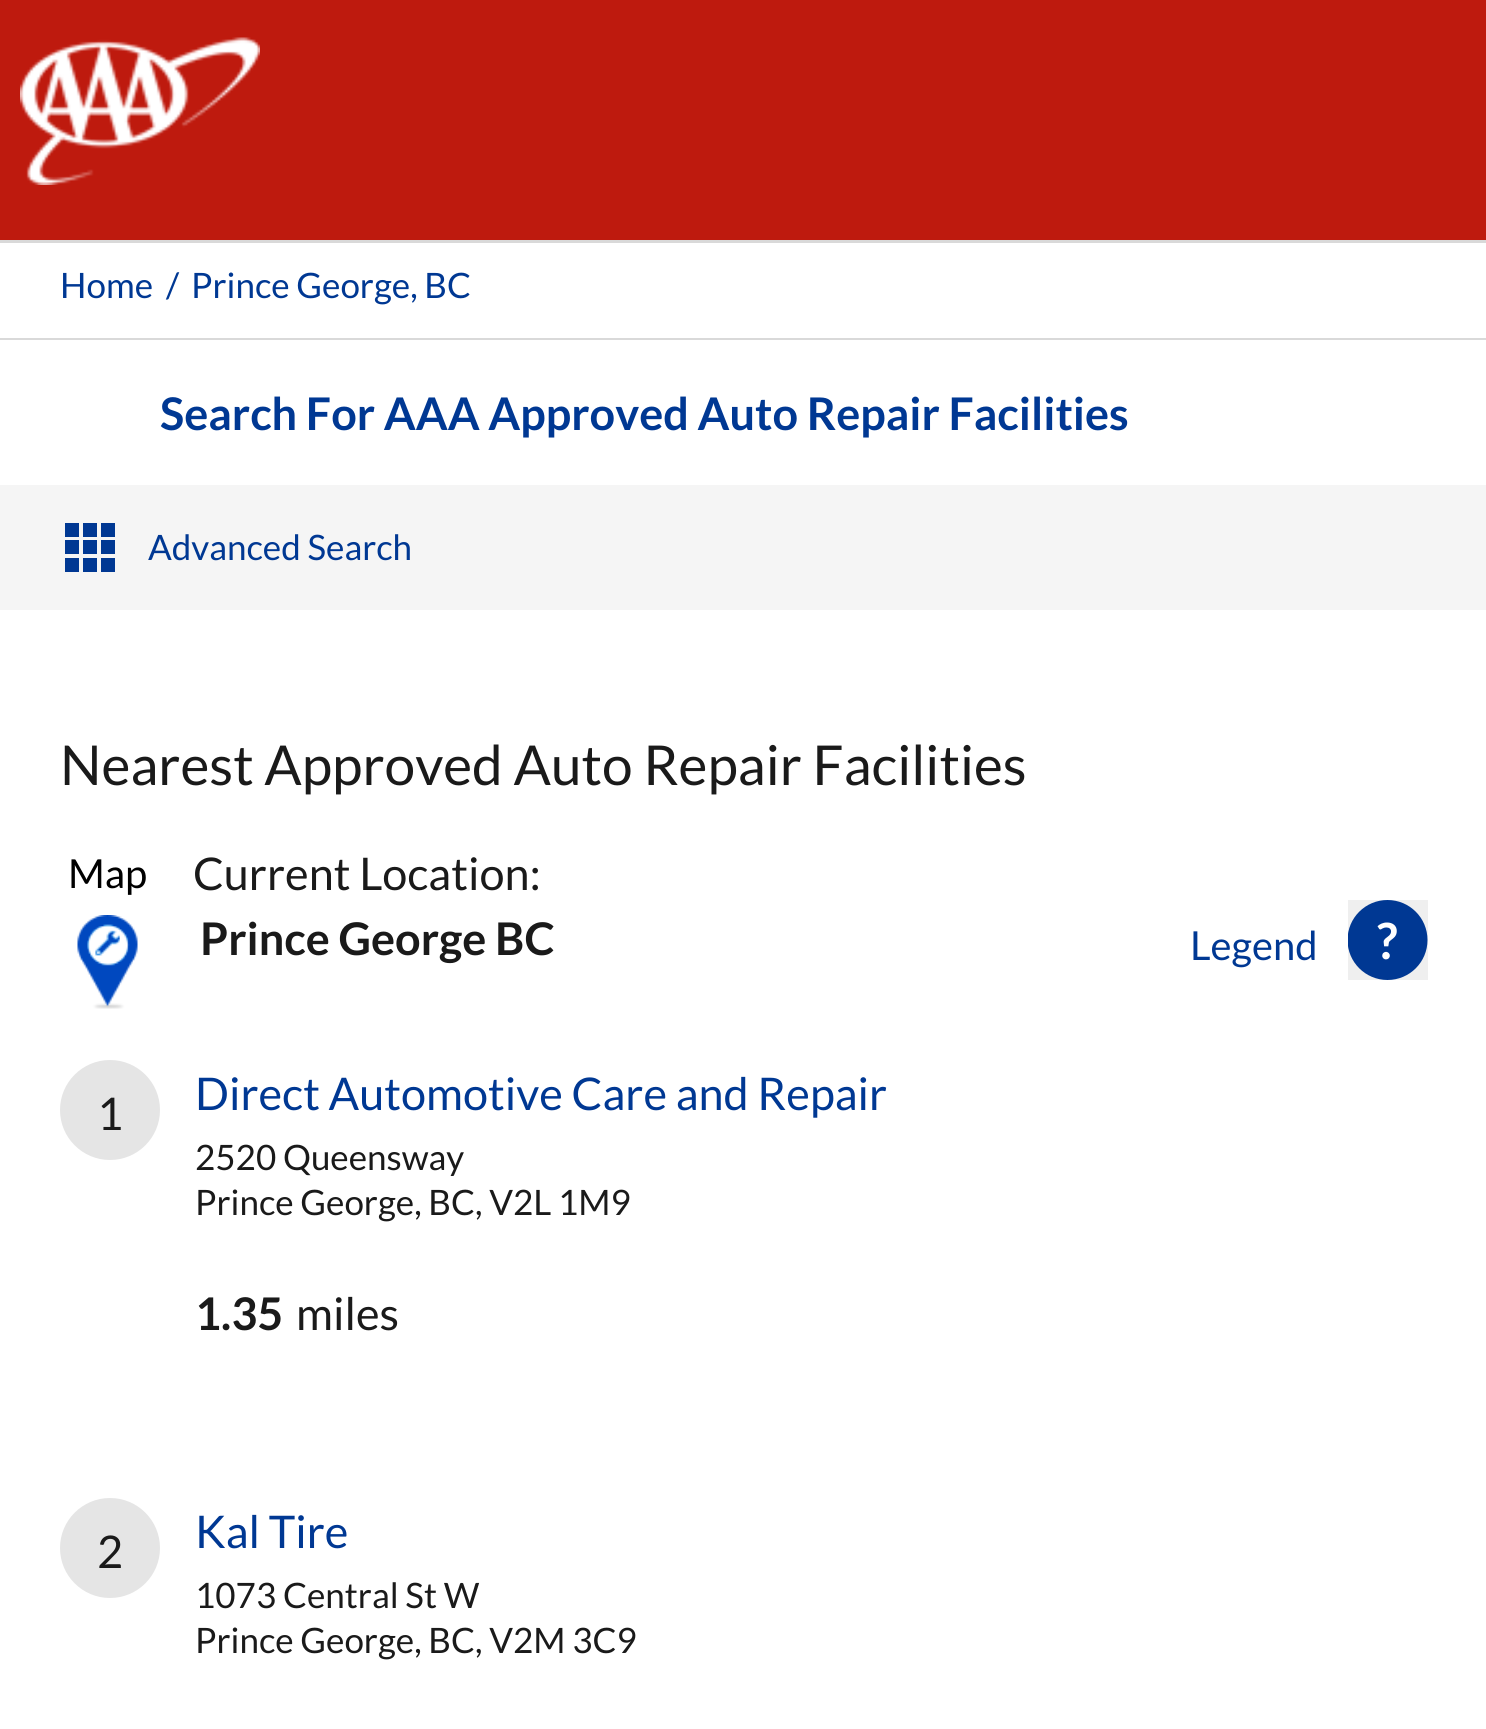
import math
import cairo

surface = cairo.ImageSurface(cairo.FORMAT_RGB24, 1486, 1729)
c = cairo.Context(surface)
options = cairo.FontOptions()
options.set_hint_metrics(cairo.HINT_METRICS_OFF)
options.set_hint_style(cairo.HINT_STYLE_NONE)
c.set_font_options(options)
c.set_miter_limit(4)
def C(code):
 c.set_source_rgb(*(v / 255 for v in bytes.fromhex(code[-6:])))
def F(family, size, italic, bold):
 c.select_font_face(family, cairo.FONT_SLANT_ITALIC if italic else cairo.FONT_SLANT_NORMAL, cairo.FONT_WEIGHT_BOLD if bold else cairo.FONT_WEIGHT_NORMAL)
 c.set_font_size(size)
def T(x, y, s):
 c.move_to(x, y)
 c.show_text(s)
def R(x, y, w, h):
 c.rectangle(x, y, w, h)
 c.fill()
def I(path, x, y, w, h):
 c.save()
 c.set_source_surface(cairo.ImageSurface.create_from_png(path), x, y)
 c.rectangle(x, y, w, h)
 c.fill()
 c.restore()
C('ffffff')
c.paint()
C('be1a0e')
R(0,0,1486,240)
I('1.png',20,37,240,148)
C('d9d9d9')
R(0,240,1486,3)
R(0,338,1486,2)
F('Lato',35,0,0)
C('003893')
T(60,298,'Home')
T(166,298,'/')
T(191,298,'Prince George, BC')
F('Lato',45,0,1)
T(160,430,'Search For AAA Approved Auto Repair Facilities')
C('f5f5f5')
R(0,485,1486,125)
C('003893')
R(65,523,14,14)
R(83,523,14,14)
R(101,523,14,14)
R(65,540,14,14)
R(83,540,14,14)
R(101,540,14,14)
R(65,558,14,14)
R(83,558,14,14)
R(101,558,14,14)
F('Lato',35,0,0)
T(148,560,'Advanced Search')
F('Lato',55,0,0)
C('1a1a1a')
T(60,785,'Nearest Approved Auto Repair Facilities')
I('2.png',77,915,61,94)
F('Lato',40,0,0)
C('000000')
T(68,888,'Map')
F('Lato',45,0,0)
C('1a1a1a')
T(193,890,'Current Location:')
F('Lato',45,0,1)
T(200,955,'Prince George BC')
F('Lato',40,0,0)
C('003893')
T(1190,960,'Legend')
C('efefef')
R(1348,900,80,80)
I('3.png',1348,900,80,80)
C('e5e5e5')
c.arc(110,1110,50,0,2 * math.pi)
c.fill()
F('Lato',45,0,0)
C('1a1a1a')
T(97,1130,'1')
C('003893')
T(195,1110,'Direct Automotive Care and Repair')
F('Lato',35,0,0)
C('1a1a1a')
T(195,1170,'2520 Queensway')
T(195,1215,'Prince George, BC, V2L 1M9')
F('Lato',45,0,1)
T(195,1330,'1.35')
F('Lato',45,0,0)
T(296,1330,'miles')
C('e5e5e5')
c.new_path()
c.arc(110,1548,50,0,2 * math.pi)
c.fill()
C('1a1a1a')
T(97,1568,'2')
C('003893')
T(195,1548,'Kal Tire')
F('Lato',35,0,0)
C('1a1a1a')
T(195,1608,'1073 Central St W')
T(195,1653,'Prince George, BC, V2M 3C9')
surface.write_to_png('o.png')
